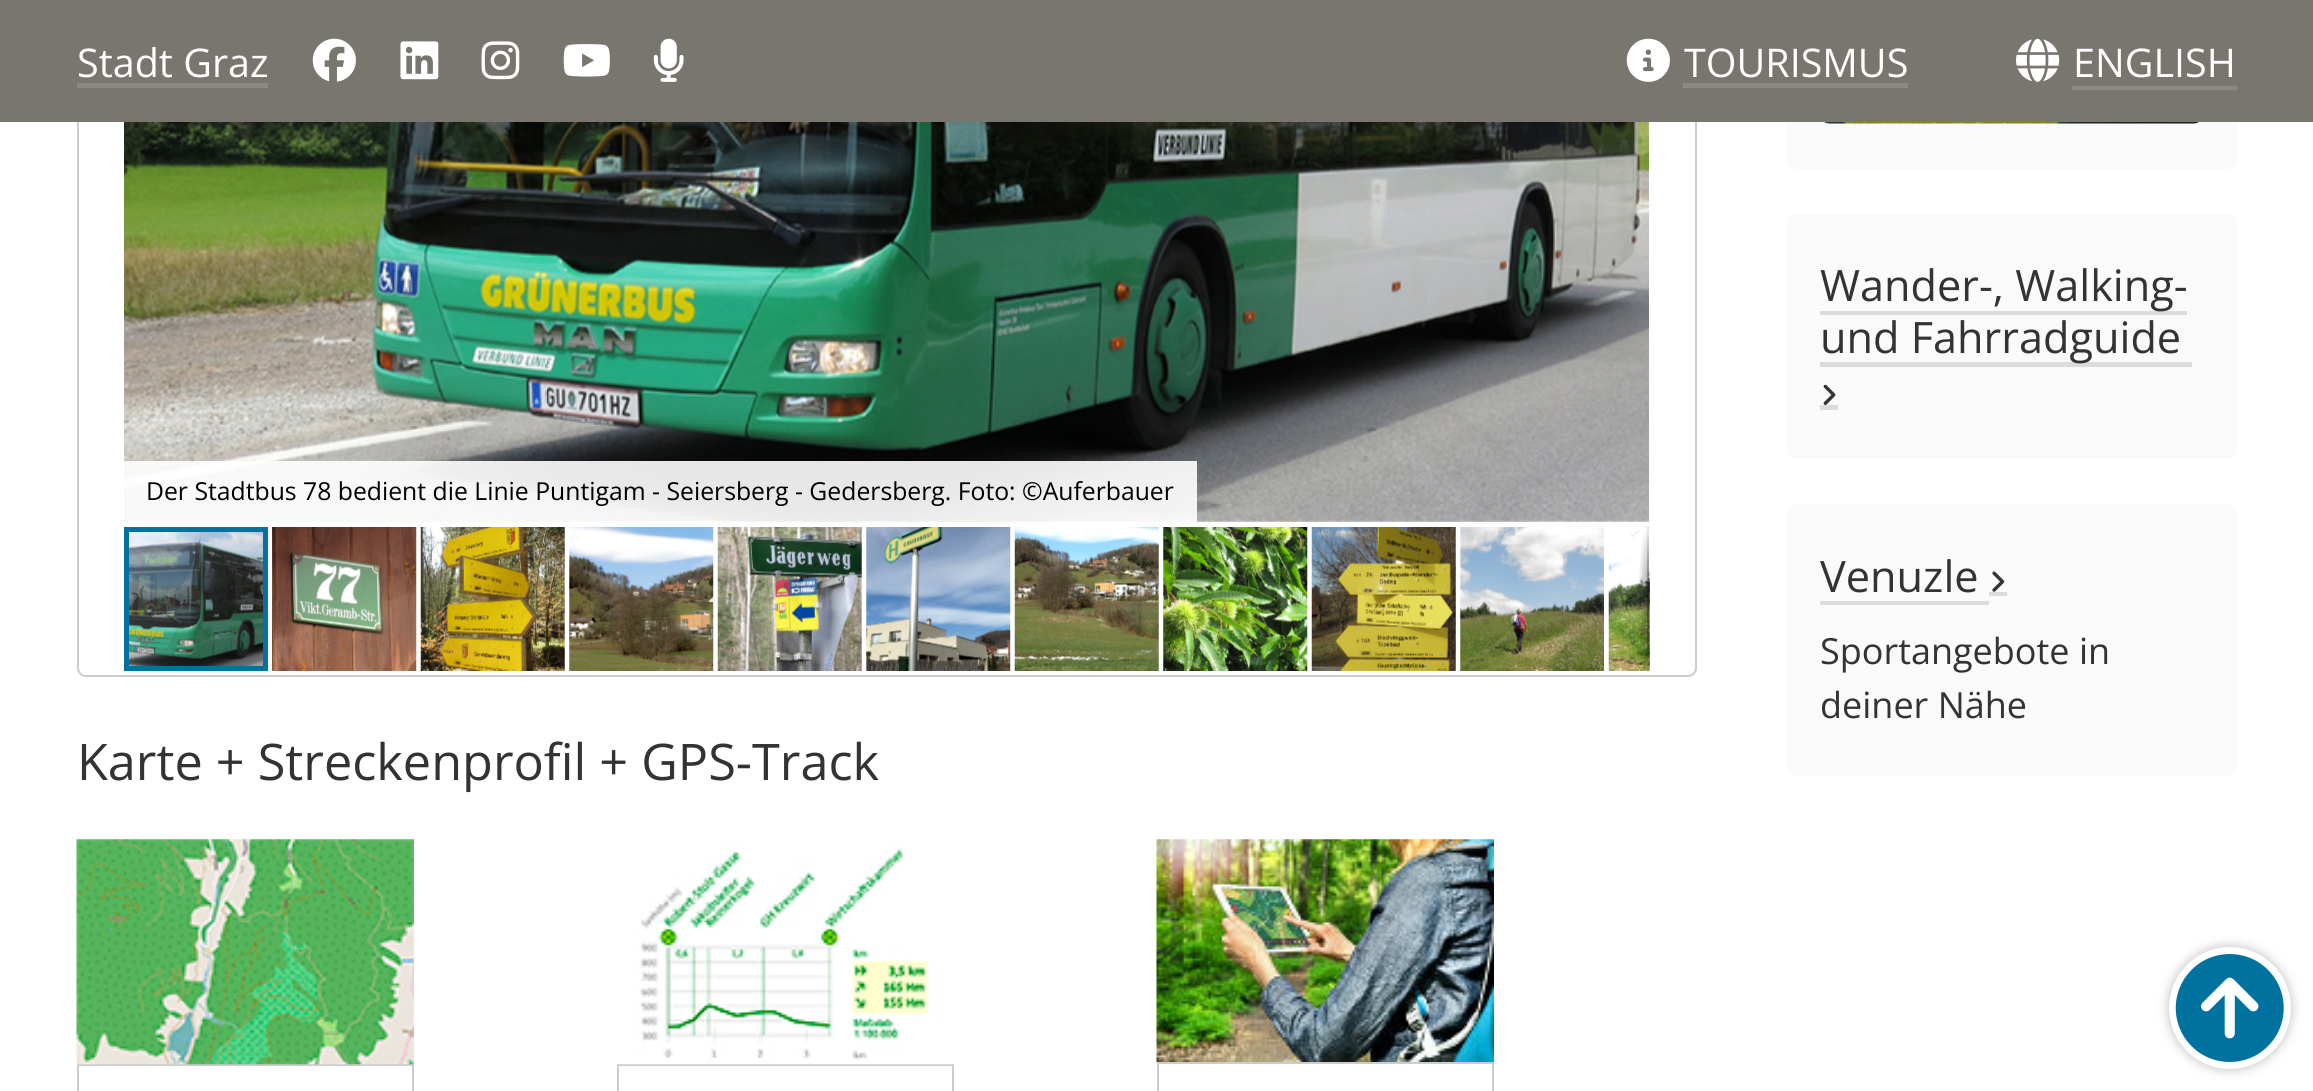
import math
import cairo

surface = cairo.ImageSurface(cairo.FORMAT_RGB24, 2313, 1091)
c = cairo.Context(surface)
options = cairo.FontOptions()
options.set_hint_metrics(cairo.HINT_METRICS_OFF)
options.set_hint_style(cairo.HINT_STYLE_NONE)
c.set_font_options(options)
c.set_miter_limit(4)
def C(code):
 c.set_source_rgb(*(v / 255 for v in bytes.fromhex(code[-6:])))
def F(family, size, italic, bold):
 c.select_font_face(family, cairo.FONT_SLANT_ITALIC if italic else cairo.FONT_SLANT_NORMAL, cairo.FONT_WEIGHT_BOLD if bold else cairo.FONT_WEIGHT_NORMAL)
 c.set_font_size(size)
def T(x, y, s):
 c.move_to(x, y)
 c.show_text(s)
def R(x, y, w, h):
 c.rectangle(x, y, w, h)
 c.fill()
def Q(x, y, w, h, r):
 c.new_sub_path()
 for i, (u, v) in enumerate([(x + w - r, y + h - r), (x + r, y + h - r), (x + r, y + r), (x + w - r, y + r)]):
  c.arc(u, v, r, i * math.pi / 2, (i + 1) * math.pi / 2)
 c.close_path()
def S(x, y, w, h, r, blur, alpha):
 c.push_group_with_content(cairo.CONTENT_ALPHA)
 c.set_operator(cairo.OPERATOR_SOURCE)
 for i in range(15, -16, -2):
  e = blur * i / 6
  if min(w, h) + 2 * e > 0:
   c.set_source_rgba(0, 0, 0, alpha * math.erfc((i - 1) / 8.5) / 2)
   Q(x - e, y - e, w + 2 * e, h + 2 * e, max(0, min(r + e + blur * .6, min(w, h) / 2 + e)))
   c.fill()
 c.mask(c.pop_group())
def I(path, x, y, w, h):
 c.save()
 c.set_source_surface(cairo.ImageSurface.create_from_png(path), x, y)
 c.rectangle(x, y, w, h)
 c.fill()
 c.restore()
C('ffffff')
c.paint()
Q(78,-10,1618,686,8)
C('cccccc')
c.stroke()
C('fafafa')
Q(1787,-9,450,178,9)
c.fill()
C('797670')
R(0,0,2313,122)
F('Open Sans',39.5,0,0)
C('ffffff')
T(77,77,'Stadt Graz')
C('8c8884')
R(77,83,191,5)
I('1.png',312,38,44,44)
I('2.png',400,41,39,39)
I('3.png',481,41,39,39)
I('4.png',563,44,47,33)
I('5.png',653,38,31,44)
I('6.png',1626,38,44,44)
R(1683,83,225,5)
C('ffffff')
T(1684,77,'TOURISMUS')
I('7.png',2016,38,44,44)
C('8c8884')
R(2072,86,165,4)
C('ffffff')
T(2073,77,'ENGLISH')
C('bcbcbc')
S(2169,947,122,122,61,5.5,1)
C('ffffff')
c.arc(2230,1008,57.5,0,2 * math.pi)
c.fill_preserve()
c.set_line_width(7)
c.stroke()
I('8.png',2175,954,109,108)
I('9.png',124,122,1525,400)
c.set_source_rgba(1,1,1,0.9)
R(124,461,1073,61)
F('Open Sans',24.75,0,0)
C('000000')
T(146,500,'Der Stadtbus 78 bedient die Linie Puntigam - Seiersberg - Gedersberg. Foto: ©Auferbauer')
I('19.png',1608,527,42,144)
gradient = cairo.RadialGradient(0,0,0,0,0,1)
gradient.set_matrix(cairo.Matrix(1 / 11, 0, 0, 1 / 77, -1 * 1649 / 11, -1 * 599 / 77))
gradient.add_color_stop_rgba(0,0,0,0,.4)
gradient.add_color_stop_rgba(1,0,0,0,0)
c.set_source(gradient)
R(1639,526,10,146)
gradient = cairo.LinearGradient(1648,522,1648,675)
gradient.add_color_stop_rgba(0,0,0,0,0)
gradient.add_color_stop_rgba(.25,0,0,0,.2)
gradient.add_color_stop_rgba(.75,0,0,0,.3)
gradient.add_color_stop_rgba(1,0,0,0,0)
c.set_source(gradient)
R(1647,522,2,153)
I('20.png',129,532,134,134)
c.rectangle(126.5,529.5,139,139)
C('00729f')
c.set_line_width(5)
c.stroke()
I('10.png',272,527,145,144)
I('11.png',420,527,145,144)
I('12.png',569,527,145,144)
I('13.png',717,527,145,144)
I('14.png',866,527,145,144)
I('15.png',1014,527,145,144)
I('16.png',1163,527,145,144)
I('17.png',1311,527,145,144)
I('18.png',1460,527,144,144)
F('Open Sans',50.4,0,0)
C('333333')
T(77,780,'Karte + Streckenprofil + GPS-Track')
c.rectangle(78,1065,335,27)
C('cccccc')
c.set_line_width(2)
c.stroke()
I('21.png',76,839,338,226)
c.rectangle(618,1065,335,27)
c.stroke()
I('22.png',617,840,337,225)
I('23.png',1156,839,338,223)
c.rectangle(1158,1063,335,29)
c.stroke()
I('24.png',1824,122,375,2)
C('fafafa')
Q(1787,214,450,245,9)
c.fill()
C('dcdcdc')
R(1820,311,367,4)
R(1820,362,372,5)
R(1820,405,18,5)
F('Open Sans',43.25,0,0)
C('333333')
T(1820,301,'Wander-, Walking-')
T(1820,353,'und Fahrradguide')
I('25.png',1823,384,13,21)
C('fafafa')
Q(1787,504,450,272,9)
c.fill()
C('dcdcdc')
R(1820,601,169,4)
R(1989,592,18,4)
C('333333')
T(1820,592,'Venuzle')
I('26.png',1992,571,13,21)
F('Open Sans',36,0,0)
T(1820,664,'Sportangebote in')
T(1820,718,'deiner Nähe')
surface.write_to_png('o.png')
